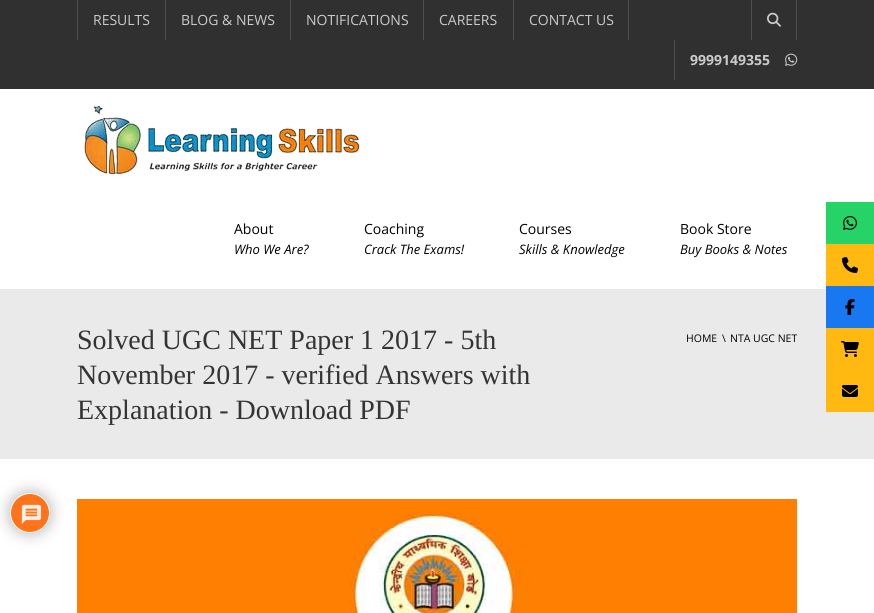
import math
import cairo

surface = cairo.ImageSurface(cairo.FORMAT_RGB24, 874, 613)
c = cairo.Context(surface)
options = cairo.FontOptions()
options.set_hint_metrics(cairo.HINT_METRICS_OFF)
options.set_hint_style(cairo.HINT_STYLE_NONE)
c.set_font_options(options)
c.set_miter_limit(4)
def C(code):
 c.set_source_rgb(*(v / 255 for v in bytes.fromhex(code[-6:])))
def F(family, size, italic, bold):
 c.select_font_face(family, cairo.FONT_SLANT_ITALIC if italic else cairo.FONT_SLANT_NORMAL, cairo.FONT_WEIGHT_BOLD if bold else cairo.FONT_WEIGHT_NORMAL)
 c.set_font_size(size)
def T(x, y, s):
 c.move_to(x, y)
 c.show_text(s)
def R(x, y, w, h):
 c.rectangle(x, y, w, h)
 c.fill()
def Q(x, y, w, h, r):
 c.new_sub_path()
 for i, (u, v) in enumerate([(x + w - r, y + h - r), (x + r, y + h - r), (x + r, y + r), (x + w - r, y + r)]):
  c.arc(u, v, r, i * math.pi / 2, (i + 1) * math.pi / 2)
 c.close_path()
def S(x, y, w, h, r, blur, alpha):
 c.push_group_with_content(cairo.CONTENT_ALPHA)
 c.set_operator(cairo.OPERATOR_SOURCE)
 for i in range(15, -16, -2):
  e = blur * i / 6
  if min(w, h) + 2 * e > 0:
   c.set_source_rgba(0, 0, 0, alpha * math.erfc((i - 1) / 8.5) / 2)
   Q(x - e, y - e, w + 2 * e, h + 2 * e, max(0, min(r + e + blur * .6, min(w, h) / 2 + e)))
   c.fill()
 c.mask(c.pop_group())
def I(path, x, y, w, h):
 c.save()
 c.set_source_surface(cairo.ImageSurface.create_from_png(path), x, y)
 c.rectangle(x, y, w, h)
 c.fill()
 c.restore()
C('ffffff')
c.paint()
C('303030')
R(0,0,874,89)
C('4f4f4f')
R(77,0,1,40)
F('Open Sans',14,0,0)
C('cbcbcb')
T(93,25,'RESULTS')
C('4f4f4f')
R(165,0,1,40)
C('cbcbcb')
T(181,25,'BLOG & NEWS')
C('4f4f4f')
R(290,0,1,40)
C('cbcbcb')
T(306,25,'NOTIFICATIONS')
C('4f4f4f')
R(423,0,1,40)
C('cbcbcb')
T(439,25,'CAREERS')
C('4f4f4f')
R(628,0,1,40)
R(513,0,1,40)
C('cbcbcb')
T(529,25,'CONTACT US')
C('4f4f4f')
R(796,0,1,40)
R(751,0,1,40)
I('1.png',767,12,14,15)
R(674,40,1,40)
F('Open Sans',14,0,1)
C('cbcbcb')
T(690,65,'9999149355')
I('2.png',785,53,13,13)
I('3.png',84,106,276,69)
F('Open Sans',14,0,0)
C('000000')
T(234,234,'About')
F('Open Sans',13,1,0)
T(234,254,'Who We Are?')
F('Open Sans',14,0,0)
T(364,234,'Coaching')
F('Open Sans',13,1,0)
T(364,254,'Crack The Exams!')
F('Open Sans',14,0,0)
T(519,234,'Courses')
F('Open Sans',13,1,0)
T(519,254,'Skills & Knowledge')
F('Open Sans',14,0,0)
T(680,234,'Book Store')
F('Open Sans',13,1,0)
T(680,254,'Buy Books & Notes')
C('eaeaea')
R(0,289,874,170)
F('Liberation Serif',28,0,0)
C('343434')
T(77,349,'Solved UGC NET Paper 1 2017 - 5th')
T(77,384,'November 2017 - verified Answers with')
T(77,419,'Explanation - Download PDF')
F('Open Sans',10.5,0,0)
C('000000')
T(686,342,'HOME')
T(722,342,'\\')
T(730,342,'NTA UGC NET')
C('25d366')
R(826,202,48,42)
I('4.png',843,216,14,14)
C('ffb910')
R(826,244,48,42)
I('5.png',842,257,16,16)
C('1778f2')
R(826,286,48,42)
I('6.png',845,299,10,16)
C('ffb910')
R(826,328,48,84)
I('7.png',841,341,18,16)
I('8.png',842,385,16,12)
I('9.png',77,499,720,114)
C('b3b3b3')
S(10,493,40,40,20,7.5,1)
C('ff741a')
c.arc(30,513,19.5,0,2 * math.pi)
c.fill_preserve()
C('ffffff')
c.set_line_width(1)
c.stroke()
I('10.png',21,504,20,20)
surface.write_to_png('o.png')
